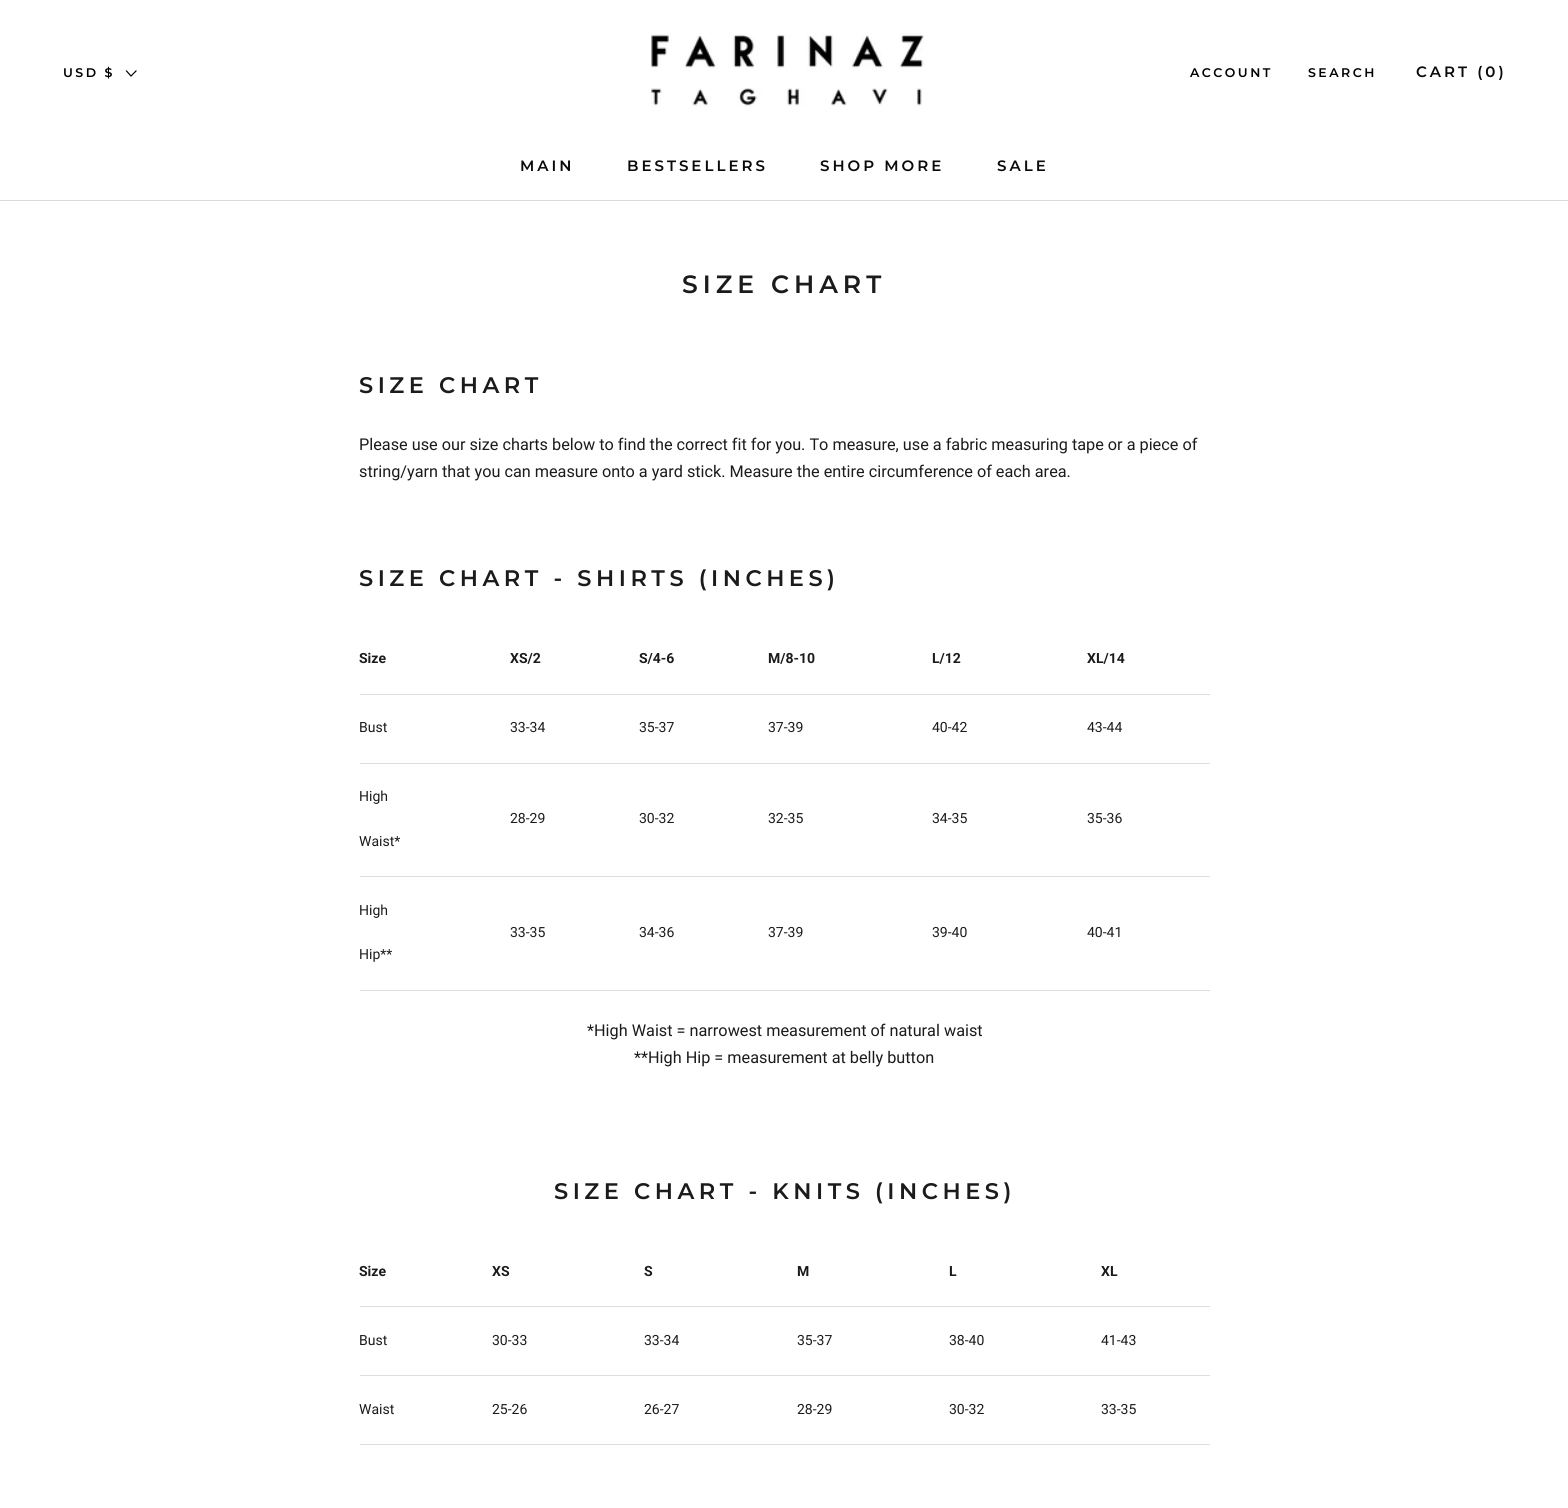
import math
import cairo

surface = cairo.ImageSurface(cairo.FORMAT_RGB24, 1568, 1508)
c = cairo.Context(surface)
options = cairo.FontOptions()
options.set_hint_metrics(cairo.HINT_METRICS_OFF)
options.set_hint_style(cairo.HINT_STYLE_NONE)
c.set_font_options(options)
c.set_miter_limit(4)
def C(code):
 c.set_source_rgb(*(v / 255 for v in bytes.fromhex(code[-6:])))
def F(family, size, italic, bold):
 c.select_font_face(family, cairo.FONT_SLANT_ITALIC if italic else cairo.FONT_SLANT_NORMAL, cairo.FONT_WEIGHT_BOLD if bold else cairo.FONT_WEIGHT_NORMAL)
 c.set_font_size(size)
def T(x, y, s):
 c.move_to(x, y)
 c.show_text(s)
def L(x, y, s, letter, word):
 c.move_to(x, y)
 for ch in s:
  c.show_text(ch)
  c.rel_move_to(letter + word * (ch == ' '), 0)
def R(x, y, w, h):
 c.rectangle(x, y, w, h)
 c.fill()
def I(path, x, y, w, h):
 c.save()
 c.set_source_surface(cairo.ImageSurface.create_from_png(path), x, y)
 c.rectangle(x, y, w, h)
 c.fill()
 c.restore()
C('ffffff')
c.paint()
C('dadada')
R(0,200,1568,1)
I('1.png',651,33,274,74)
F('Montserrat SemiBold',12.5,0,0)
C('000000')
L(1190,77,'ACCOUNT',2.5,0)
L(1308,77,'SEARCH',2.5,0)
F('Montserrat SemiBold',15,0,0)
C('0a0a0a')
L(1416,77,'CART (0)',3,0)
F('Montserrat SemiBold',12.5,0,0)
C('000000')
L(63,77,'USD $',2.5,0)
c.new_path()
c.move_to(136,71)
c.line_to(131,76)
c.line_to(126.5,71)
c.set_line_width(1.2)
c.set_line_cap(cairo.LINE_CAP_SQUARE)
c.stroke()
F('Montserrat SemiBold',15,0,0)
C('0a0a0a')
L(520,171,'MAIN',3,0)
L(627,171,'BESTSELLERS',3,0)
L(820,171,'SHOP MORE',3,0)
L(997,171,'SALE',3,0)
F('Montserrat SemiBold',25,0,0)
C('1c1b1b')
L(682,293,'SIZE CHART',5,0)
F('Montserrat SemiBold',22.5,0,0)
L(359,393,'SIZE CHART',4.5,0)
F('Roboto',16.25,0,0)
T(359,450,'Please use our size charts below to find the correct fit for you. To measure, use a fabric measuring tape or a piece of')
T(359,477,'string/yarn that you can measure onto a yard stick. Measure the entire circumference of each area.')
F('Montserrat SemiBold',22.5,0,0)
L(359,586,'SIZE CHART - SHIRTS (INCHES)',4.5,0)
C('dddddd')
R(360,694,850,1)
F('Roboto',14,0,1)
C('1c1b1b')
T(359,663,'Size')
T(510,663,'XS/2')
T(639,663,'S/4-6')
T(768,663,'M/8-10')
T(932,663,'L/12')
T(1087,663,'XL/14')
C('dddddd')
R(360,763,850,1)
F('Roboto',14,0,0)
C('1c1b1b')
T(359,732,'Bust')
T(510,732,'33-34')
T(639,732,'35-37')
T(768,732,'37-39')
T(932,732,'40-42')
T(1087,732,'43-44')
C('dddddd')
R(360,876,850,1)
C('1c1b1b')
T(359,801,'High')
T(359,846,'Waist*')
T(510,823,'28-29')
T(639,823,'30-32')
T(768,823,'32-35')
T(932,823,'34-35')
T(1087,823,'35-36')
C('dddddd')
R(360,990,850,1)
C('1c1b1b')
T(359,915,'High')
T(359,959,'Hip**')
T(510,937,'33-35')
T(639,937,'34-36')
T(768,937,'37-39')
T(932,937,'39-40')
T(1087,937,'40-41')
F('Roboto',16.25,0,0)
T(587,1036,'*High Waist = narrowest measurement of natural waist')
T(634,1063,'**High Hip = measurement at belly button')
F('Montserrat SemiBold',22.5,0,0)
L(554,1199,'SIZE CHART - KNITS (INCHES)',4.5,0)
C('dddddd')
R(360,1306,850,1)
F('Roboto',14,0,1)
C('1c1b1b')
T(359,1276,'Size')
T(492,1276,'XS')
T(644,1276,'S')
T(797,1276,'M')
T(949,1276,'L')
T(1101,1276,'XL')
C('dddddd')
R(360,1375,850,1)
F('Roboto',14,0,0)
C('1c1b1b')
T(359,1345,'Bust')
T(492,1345,'30-33')
T(644,1345,'33-34')
T(797,1345,'35-37')
T(949,1345,'38-40')
T(1101,1345,'41-43')
C('dddddd')
R(360,1444,850,1)
C('1c1b1b')
T(359,1414,'Waist')
T(492,1414,'25-26')
T(644,1414,'26-27')
T(797,1414,'28-29')
T(949,1414,'30-32')
T(1101,1414,'33-35')
surface.write_to_png('o.png')
